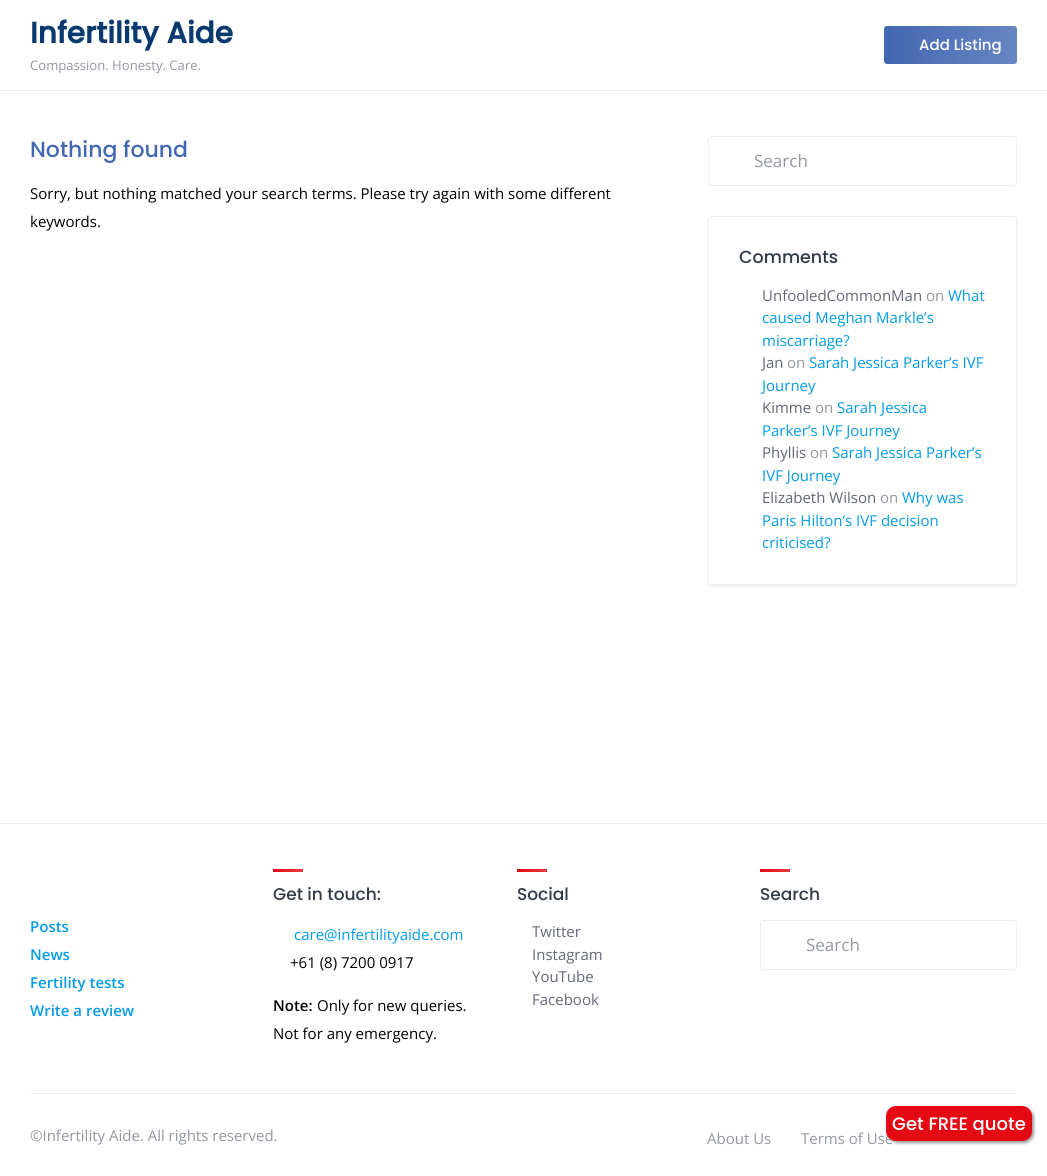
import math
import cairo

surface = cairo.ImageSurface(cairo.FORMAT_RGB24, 1047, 1176)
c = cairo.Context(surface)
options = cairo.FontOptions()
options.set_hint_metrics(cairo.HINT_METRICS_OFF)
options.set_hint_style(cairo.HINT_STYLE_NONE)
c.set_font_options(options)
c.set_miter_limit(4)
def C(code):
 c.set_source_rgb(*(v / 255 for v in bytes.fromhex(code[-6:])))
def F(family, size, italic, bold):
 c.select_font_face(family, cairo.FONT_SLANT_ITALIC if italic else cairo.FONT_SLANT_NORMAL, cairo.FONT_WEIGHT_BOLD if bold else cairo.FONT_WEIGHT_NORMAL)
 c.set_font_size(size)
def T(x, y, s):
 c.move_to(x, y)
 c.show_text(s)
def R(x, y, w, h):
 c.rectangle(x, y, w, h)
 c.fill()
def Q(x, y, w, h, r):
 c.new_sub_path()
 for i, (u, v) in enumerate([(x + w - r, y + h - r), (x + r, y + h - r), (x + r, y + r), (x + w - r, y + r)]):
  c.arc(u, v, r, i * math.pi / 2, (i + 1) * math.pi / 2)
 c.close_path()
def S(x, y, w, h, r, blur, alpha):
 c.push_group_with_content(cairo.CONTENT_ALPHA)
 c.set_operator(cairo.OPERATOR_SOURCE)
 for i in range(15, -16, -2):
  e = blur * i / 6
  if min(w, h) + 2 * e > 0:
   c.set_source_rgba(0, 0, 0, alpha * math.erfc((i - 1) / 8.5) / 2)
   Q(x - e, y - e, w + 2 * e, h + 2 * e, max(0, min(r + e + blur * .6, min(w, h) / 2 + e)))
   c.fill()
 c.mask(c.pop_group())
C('ffffff')
c.paint()
C('eceff2')
R(0,90,1047,1)
F('Poppins',29.5,0,1)
C('083a6f')
T(30,43,'Infertility Aide')
F('Open Sans',13.1,0,0)
C('93979e')
T(30,70,'Compassion. Honesty. Care.')
C('4267b2')
Q(884,26,133,38,3)
c.fill()
gradient = cairo.LinearGradient(884,45,1017,45)
gradient.add_color_stop_rgba(0,1,1,1,0)
gradient.add_color_stop_rgba(1,1,1,1,.2)
c.set_source(gradient)
Q(884,26,133,38,3)
c.fill()
F('Poppins Medium',15,0,0)
C('ffffff')
T(919,50,'Add Listing')
F('Poppins Medium',22,0,0)
C('4267b2')
T(30,157,'Nothing found')
F('Open Sans',15,0,0)
C('000000')
T(30,199,'Sorry, but nothing matched your search terms. Please try again with some different')
T(30,227,'keywords.')
Q(708.5,136.5,308,49,2.5)
C('eceff2')
c.set_line_width(1)
c.stroke()
F('Open Sans',17,0,0)
C('93979e')
T(754,167,'Search')
C('072456')
S(708,218,309,369,3,2,.07)
C('ffffff')
Q(708.5,216.5,308,368,2.5)
c.fill_preserve()
C('eceff2')
c.stroke()
F('Poppins Medium',17.5,0,0)
C('333a47')
T(739,263,'Comments')
F('Open Sans',15,0,0)
C('636873')
T(762,301,'UnfooledCommonMan')
C('93979e')
T(926,301,'on')
C('039be5')
T(948,301,'What')
T(762,323,'caused Meghan Markle’s')
T(762,346,'miscarriage?')
C('636873')
T(762,368,'Jan')
C('93979e')
T(787,368,'on')
C('039be5')
T(809,368,'Sarah Jessica Parker’s IVF')
T(762,391,'Journey')
C('636873')
T(762,413,'Kimme')
C('93979e')
T(815,413,'on')
C('039be5')
T(837,413,'Sarah Jessica')
T(762,436,'Parker’s IVF Journey')
C('636873')
T(762,458,'Phyllis')
C('93979e')
T(810,458,'on')
C('039be5')
T(832,458,'Sarah Jessica Parker’s')
T(762,481,'IVF Journey')
C('636873')
T(762,503,'Elizabeth Wilson')
C('93979e')
T(880,503,'on')
C('039be5')
T(902,503,'Why was')
T(762,526,'Paris Hilton’s IVF decision')
T(762,548,'criticised?')
C('eceff2')
R(0,823,1047,1)
R(30,1093,987,1)
F('Open Sans SemiBold',15,0,0)
C('039be5')
T(30,932,'Posts')
T(30,960,'News')
T(30,988,'Fertility tests')
T(30,1016,'Write a review')
gradient = cairo.LinearGradient(273,871,303,871)
gradient.add_color_stop_rgba(0,0.898,0.035,0.078,1)
gradient.add_color_stop_rgba(1,0.918,0.227,0.263,1)
c.set_source(gradient)
R(273,869,30,3)
F('Poppins Medium',17,0,0)
C('333a47')
T(273,900,'Get in touch:')
F('Open Sans',15,0,0)
C('039be5')
T(294,940,'care@infertilityaide.com')
C('000000')
T(290,968,'+61 (8) 7200 0917')
F('Open Sans SemiBold',15,0,0)
T(273,1011,'Note:')
F('Open Sans',15,0,0)
T(317,1011,'Only for new queries.')
T(273,1039,'Not for any emergency.')
gradient = cairo.LinearGradient(517,871,547,871)
gradient.add_color_stop_rgba(0,0.898,0.035,0.078,1)
gradient.add_color_stop_rgba(1,0.918,0.227,0.263,1)
c.set_source(gradient)
R(517,869,30,3)
F('Poppins Medium',17,0,0)
C('333a47')
T(517,900,'Social')
F('Open Sans',15,0,0)
C('636873')
T(532,937,'Twitter')
T(532,960,'Instagram')
T(532,982,'YouTube')
T(532,1005,'Facebook')
gradient = cairo.LinearGradient(760,871,790,871)
gradient.add_color_stop_rgba(0,0.898,0.035,0.078,1)
gradient.add_color_stop_rgba(1,0.918,0.227,0.263,1)
c.set_source(gradient)
R(760,869,30,3)
F('Poppins Medium',17,0,0)
C('333a47')
T(760,900,'Search')
Q(760.5,920.5,256,49,2.5)
C('eceff2')
c.stroke()
F('Open Sans',17,0,0)
C('93979e')
T(806,951,'Search')
F('Open Sans',15,0,0)
T(30,1141,'©Infertility Aide. All rights reserved.')
T(707,1144,'About Us')
T(801,1144,'Terms of Use')
C('999999')
S(888,1108,146,35,10,1.5,1)
C('e50914')
Q(886,1106,146,35,10)
c.fill()
F('Poppins Medium',18,0,0)
C('ffffff')
T(892,1130,'Get FREE quote')
surface.write_to_png('o.png')
